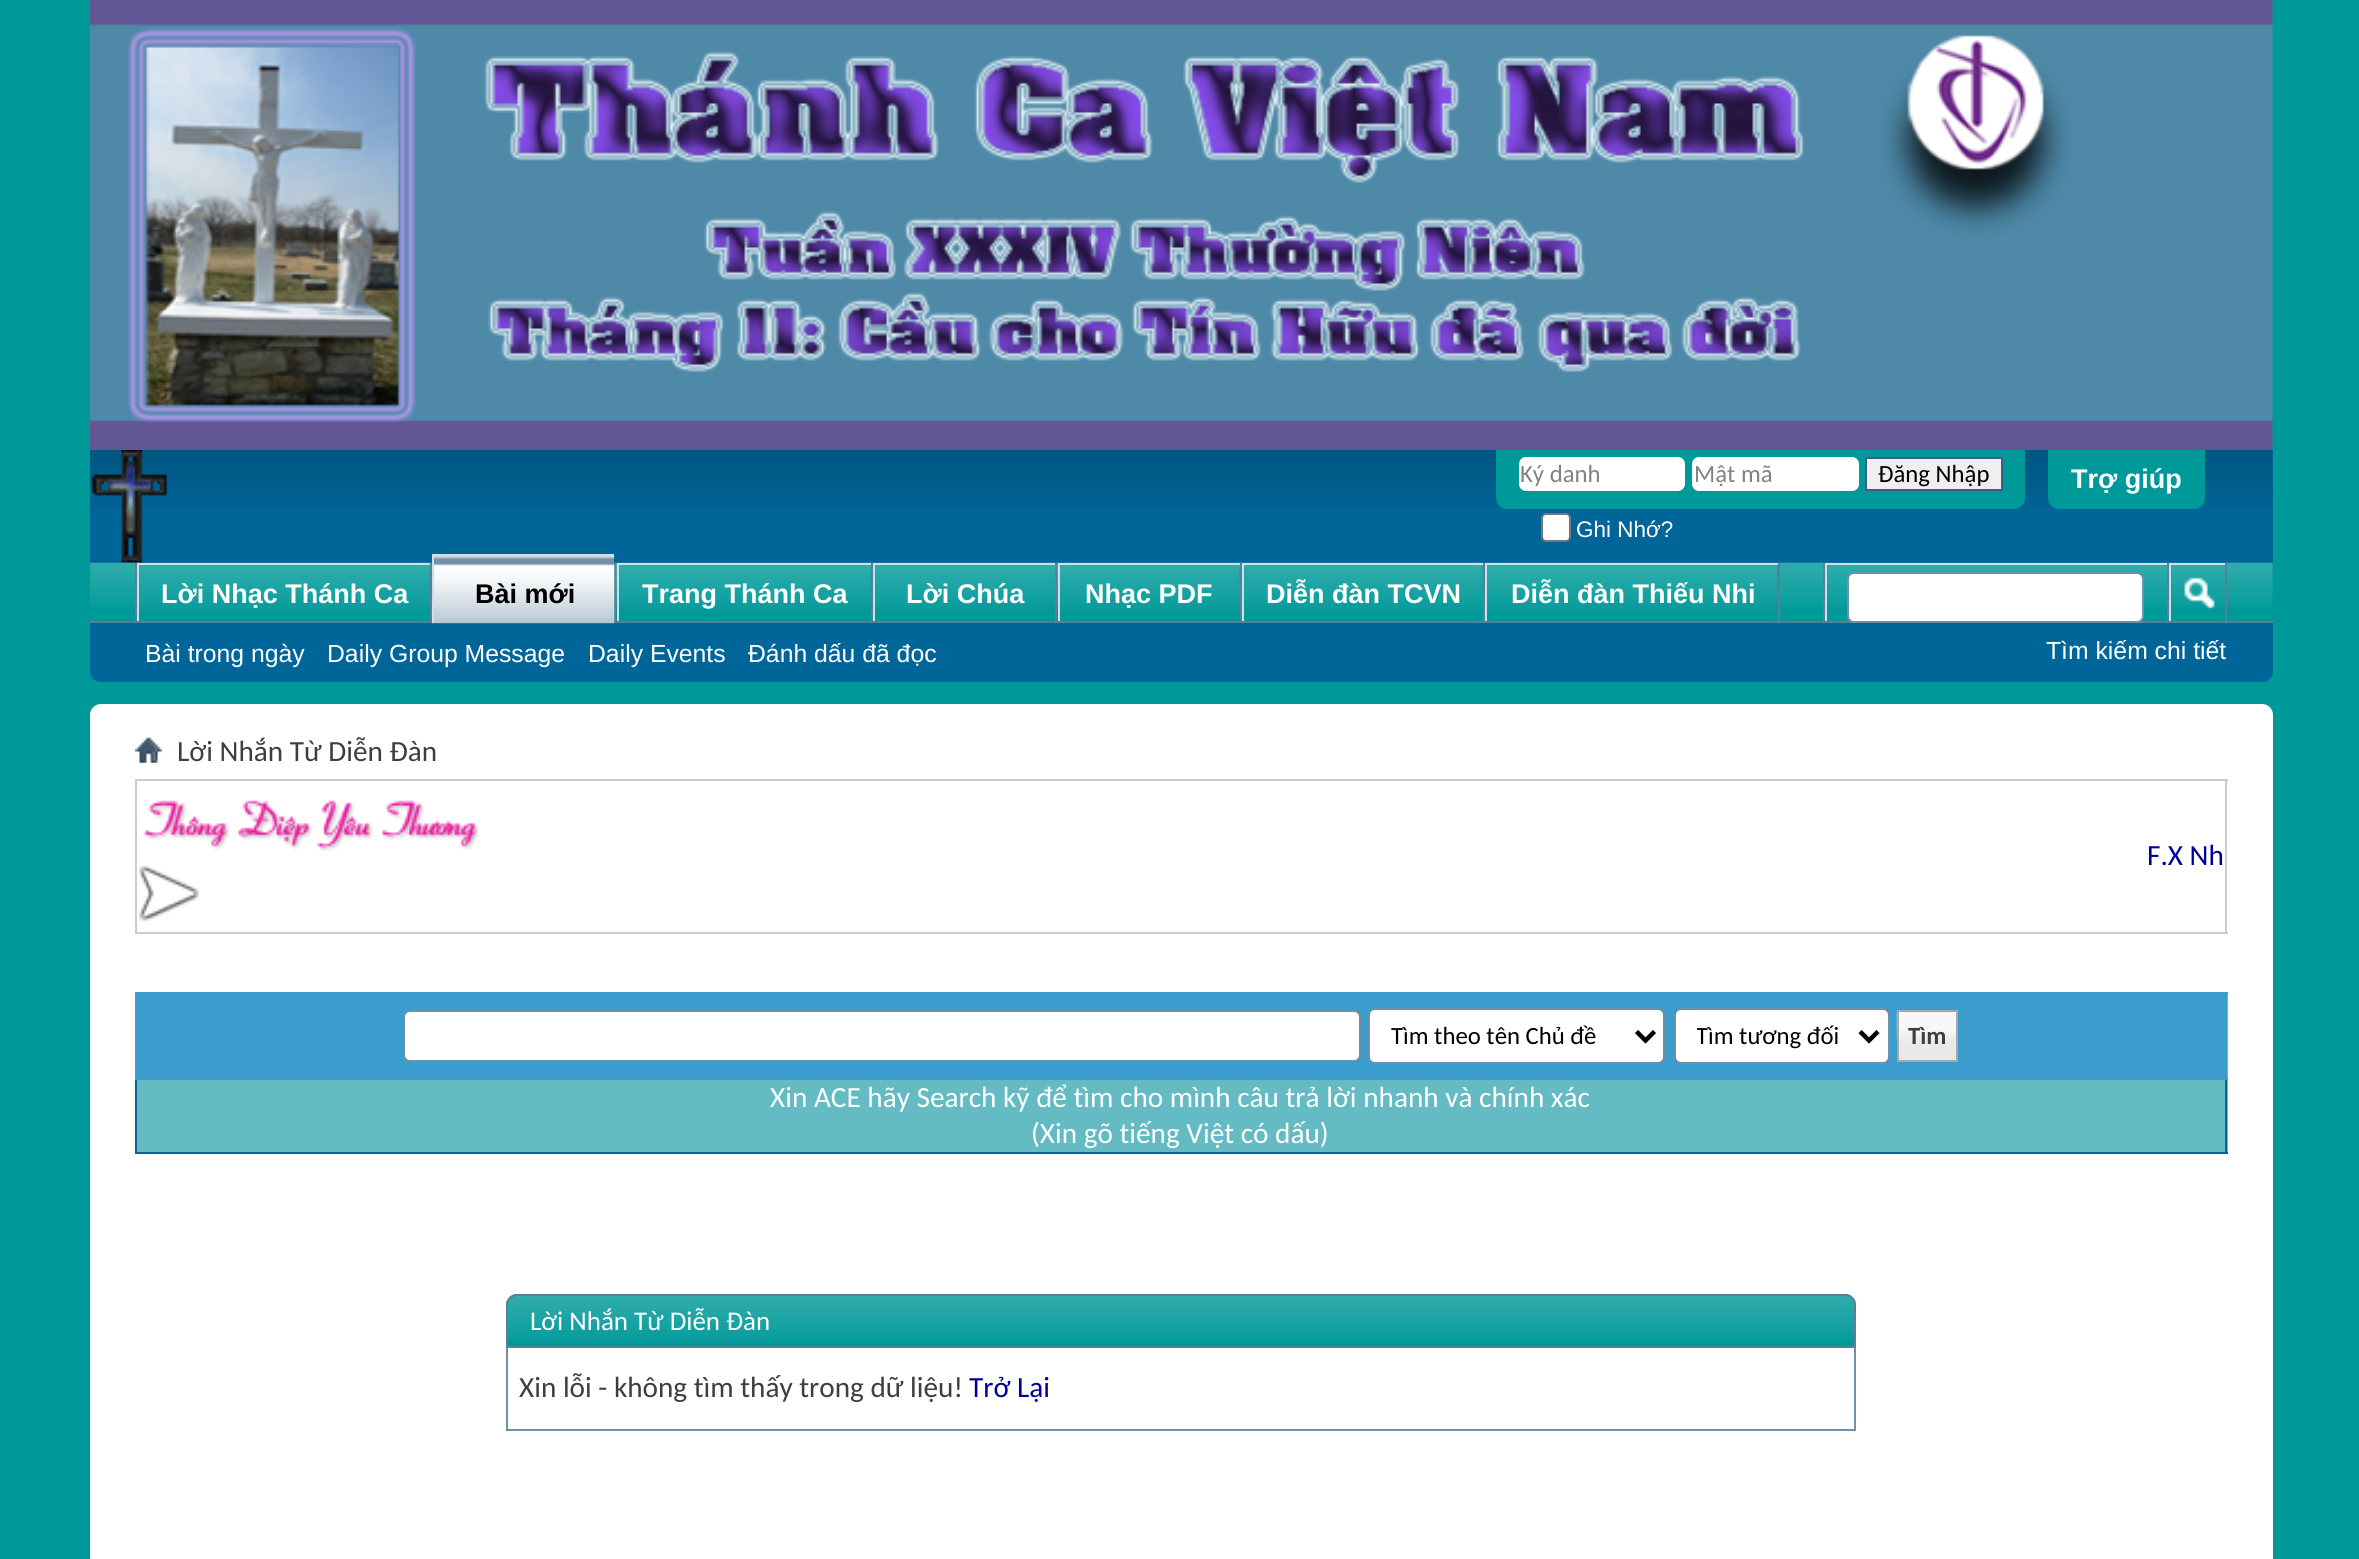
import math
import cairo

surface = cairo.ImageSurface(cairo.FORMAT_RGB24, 2359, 1559)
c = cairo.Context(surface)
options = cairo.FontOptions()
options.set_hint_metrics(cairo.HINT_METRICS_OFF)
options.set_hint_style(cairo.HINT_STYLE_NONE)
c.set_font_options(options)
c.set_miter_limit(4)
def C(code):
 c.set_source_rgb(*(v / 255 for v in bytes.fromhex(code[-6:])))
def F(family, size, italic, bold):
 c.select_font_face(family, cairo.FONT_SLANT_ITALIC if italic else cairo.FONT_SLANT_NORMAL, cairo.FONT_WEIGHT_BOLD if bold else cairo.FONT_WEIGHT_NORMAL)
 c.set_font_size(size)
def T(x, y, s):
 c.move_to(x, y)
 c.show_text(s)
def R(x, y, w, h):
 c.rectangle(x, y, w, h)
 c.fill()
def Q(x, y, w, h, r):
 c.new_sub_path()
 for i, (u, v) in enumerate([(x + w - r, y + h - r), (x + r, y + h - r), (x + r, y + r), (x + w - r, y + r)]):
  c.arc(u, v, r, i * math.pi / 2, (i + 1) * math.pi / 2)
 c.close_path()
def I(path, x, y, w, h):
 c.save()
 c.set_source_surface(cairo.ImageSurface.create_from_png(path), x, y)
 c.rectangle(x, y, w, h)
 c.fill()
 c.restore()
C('009999')
c.paint()
I('1.png',90,0,2183,450)
C('006699')
c.new_path()
c.move_to(90,450)
c.line_to(2273,450)
c.line_to(2273,671)
c.curve_to(2273,677,2268,682,2262,682)
c.line_to(101,682)
c.curve_to(95,682,90,677,90,671)
c.close_path()
c.fill()
I('2.png',90,450,2183,58)
I('3.png',91,450,77,113)
C('009999')
c.new_path()
c.move_to(1496,450)
c.line_to(2025,450)
c.line_to(2025,498)
c.curve_to(2025,504,2020,509,2014,509)
c.line_to(1507,509)
c.curve_to(1501,509,1496,504,1496,498)
c.close_path()
c.fill()
C('ffffff')
Q(1519,457,166,34,7)
c.fill()
F('Carlito',24.75,0,0)
C('828282')
T(1520,482,'Ký danh')
C('ffffff')
Q(1692,457,167,34,7)
c.fill()
C('828282')
T(1694,482,'Mật mã')
C('efefef')
c.rectangle(1866,458,136,32)
c.fill_preserve()
C('415d8d')
c.stroke()
C('000000')
T(1878,482,'Ðăng Nhập')
C('ffffff')
Q(1542,514,28,27,4)
c.fill_preserve()
C('767676')
c.stroke()
F('Liberation Sans',22.5,0,0)
C('ffffff')
T(1576,537,'Ghi Nhớ?')
C('009999')
c.new_path()
c.move_to(2048,450)
c.line_to(2205,450)
c.line_to(2205,498)
c.curve_to(2205,504,2200,509,2194,509)
c.line_to(2059,509)
c.curve_to(2053,509,2048,504,2048,498)
c.close_path()
c.fill()
F('Liberation Sans',27,0,1)
C('ffffff')
T(2071,488,'Trợ giúp')
C('006699')
c.new_path()
c.move_to(90,563)
c.line_to(2273,563)
c.line_to(2273,671)
c.curve_to(2273,677,2268,682,2262,682)
c.line_to(101,682)
c.curve_to(95,682,90,677,90,671)
c.close_path()
c.fill()
C('009999')
R(90,563,2183,58)
I('4.png',90,562,2183,46)
C('5a7f97')
R(614,563,2,58)
R(1483,563,2,60)
C('cedfeb')
R(1242,563,241,2)
R(1242,563,2,60)
C('5a7f97')
R(1778,563,2,60)
C('cedfeb')
R(1485,563,293,2)
R(1485,563,2,60)
C('5a7f97')
R(430,563,2,60)
R(135,563,2,60)
C('cedfeb')
R(137,563,293,2)
R(137,563,2,60)
C('5a7f97')
R(871,563,2,60)
C('009999')
R(619,565,252,43)
I('9.png',616,564,255,46)
C('cedfeb')
R(617,563,254,2)
R(617,563,2,60)
C('5a7f97')
R(1055,563,2,60)
C('cedfeb')
R(873,563,182,2)
R(873,563,2,60)
C('5a7f97')
R(1240,563,2,60)
C('009999')
R(1060,565,180,43)
I('11.png',1057,564,183,46)
C('cedfeb')
R(1058,563,182,2)
R(1058,563,2,60)
C('5a7f97')
R(90,621,2183,2)
C('7192a8')
R(434,556,180,67)
I('5.png',432,555,183,69)
C('cedfeb')
R(432,554,182,2)
R(432,554,2,69)
C('000000')
T(475,603,'Bài mới')
F('Liberation Sans',24.75,0,0)
C('ffffff')
T(145,662,'Bài trong ngày')
T(327,662,'Daily Group Message')
T(588,662,'Daily Events')
T(748,662,'Ðánh dấu đã đọc')
C('009999')
R(1244,565,239,43)
I('6.png',1244,565,239,45)
F('Liberation Sans',27,0,1)
C('ffffff')
T(1266,603,'Diễn đàn TCVN')
C('009999')
R(1487,565,291,43)
I('7.png',1487,565,291,45)
C('ffffff')
T(1511,603,'Diễn đàn Thiếu Nhi')
C('009999')
R(139,565,291,43)
I('8.png',139,565,291,45)
C('ffffff')
T(161,603,'Lời Nhạc Thánh Ca')
T(642,603,'Trang Thánh Ca')
C('009999')
R(875,565,180,43)
I('10.png',875,565,181,45)
C('ffffff')
T(906,603,'Lời Chúa')
T(1085,603,'Nhạc PDF')
C('5a7f97')
R(1823,563,2,58)
C('cedfeb')
R(1825,563,342,2)
R(1825,563,2,58)
C('ffffff')
Q(1848,573,295,49,6)
c.fill_preserve()
C('6b91ab')
c.stroke()
C('5a7f97')
R(2225,563,2,58)
R(2167,563,2,58)
C('cedfeb')
R(2169,563,56,2)
R(2169,563,2,58)
I('12.png',2184,577,31,33)
F('Liberation Sans',24.75,0,0)
C('ffffff')
T(2046,659,'Tìm kiếm chi tiết')
Q(90,704,2183,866,11)
c.fill()
I('13.png',135,737,27,26)
F('Carlito',29.25,0,0)
C('3e3e3e')
T(177,761,'Lời Nhắn Từ Diễn Ðàn')
C('cccccc')
R(135,779,2093,2)
R(2225,779,2,155)
R(135,932,2093,2)
R(135,779,2,155)
I('14.png',143,800,336,51)
I('15.png',139,865,61,57)
C('000099')
T(2147,865,'F.X Nh')
C('64bbc3')
R(137,994,2091,158)
C('006699')
R(2225,1080,2,74)
R(135,1152,2093,2)
R(135,1080,2,74)
C('3a9dcd')
R(137,994,2088,84)
R(135,992,2093,2)
R(2225,992,2,88)
R(135,1078,2093,2)
R(135,992,2,88)
C('ffffff')
Q(404,1011,956,50,6)
c.fill_preserve()
C('6b91ab')
c.stroke()
C('ffffff')
Q(1369,1009,295,54,6)
c.fill_preserve()
C('6b91ab')
c.stroke()
c.new_path()
c.move_to(1636.5,1031.5)
c.line_to(1645.5,1040.5)
c.line_to(1654.5,1031.5)
C('000000')
c.set_line_width(4.5)
c.stroke()
F('Carlito',24.75,0,0)
T(1391,1044,'Tìm theo tên Chủ đề')
C('ffffff')
Q(1675,1009,214,54,6)
c.fill_preserve()
C('6b91ab')
c.set_line_width(2)
c.stroke()
c.new_path()
c.move_to(1860,1031.5)
c.line_to(1869,1040.5)
c.line_to(1878,1031.5)
C('000000')
c.set_line_width(4.5)
c.stroke()
c.save()
c.rectangle(1697,1019,144,34)
c.clip()
T(1696,1044,'Tìm tương đối')
c.restore()
C('e9e9e9')
R(1899,1012,57,48)
I('16.png',1896,1012,60,30)
c.rectangle(1898,1011,59,50)
C('a8a8a8')
c.set_line_width(2)
c.stroke()
F('Carlito',24.75,0,1)
C('3e3e3e')
T(1908,1044,'Tìm')
F('Carlito',29.25,0,0)
C('ffffff')
T(770,1107,'Xin ACE hãy Search kỹ để tìm cho mình câu trả lời nhanh và chính xác')
T(1031,1143,'(Xin gõ tiếng Việt có dấu)')
C('009999')
c.new_path()
c.move_to(517,1294)
c.line_to(1845,1294)
c.curve_to(1851,1294,1856,1299,1856,1305)
c.line_to(1856,1348)
c.line_to(506,1348)
c.line_to(506,1305)
c.curve_to(506,1299,511,1294,517,1294)
c.close_path()
c.fill()
I('17.png',506,1296,1350,45)
c.new_path()
c.move_to(517,1295)
c.line_to(1845,1295)
c.curve_to(1850.5,1295,1855,1299.5,1855,1305)
c.line_to(1855,1347)
c.line_to(507,1347)
c.line_to(507,1305)
c.curve_to(507,1299.5,511.5,1295,517,1295)
c.close_path()
C('5a7f97')
c.stroke()
F('Carlito',27,0,0)
C('ffffff')
T(530,1330,'Lời Nhắn Từ Diễn Ðàn')
C('6b91ab')
R(1854,1348,2,83)
R(506,1429,1350,2)
R(506,1348,2,83)
F('Carlito',29.25,0,0)
C('3e3e3e')
T(519,1397,'Xin lỗi - không tìm thấy trong dữ liệu!')
C('000099')
T(969,1397,'Trở Lại')
surface.write_to_png('o.png')
